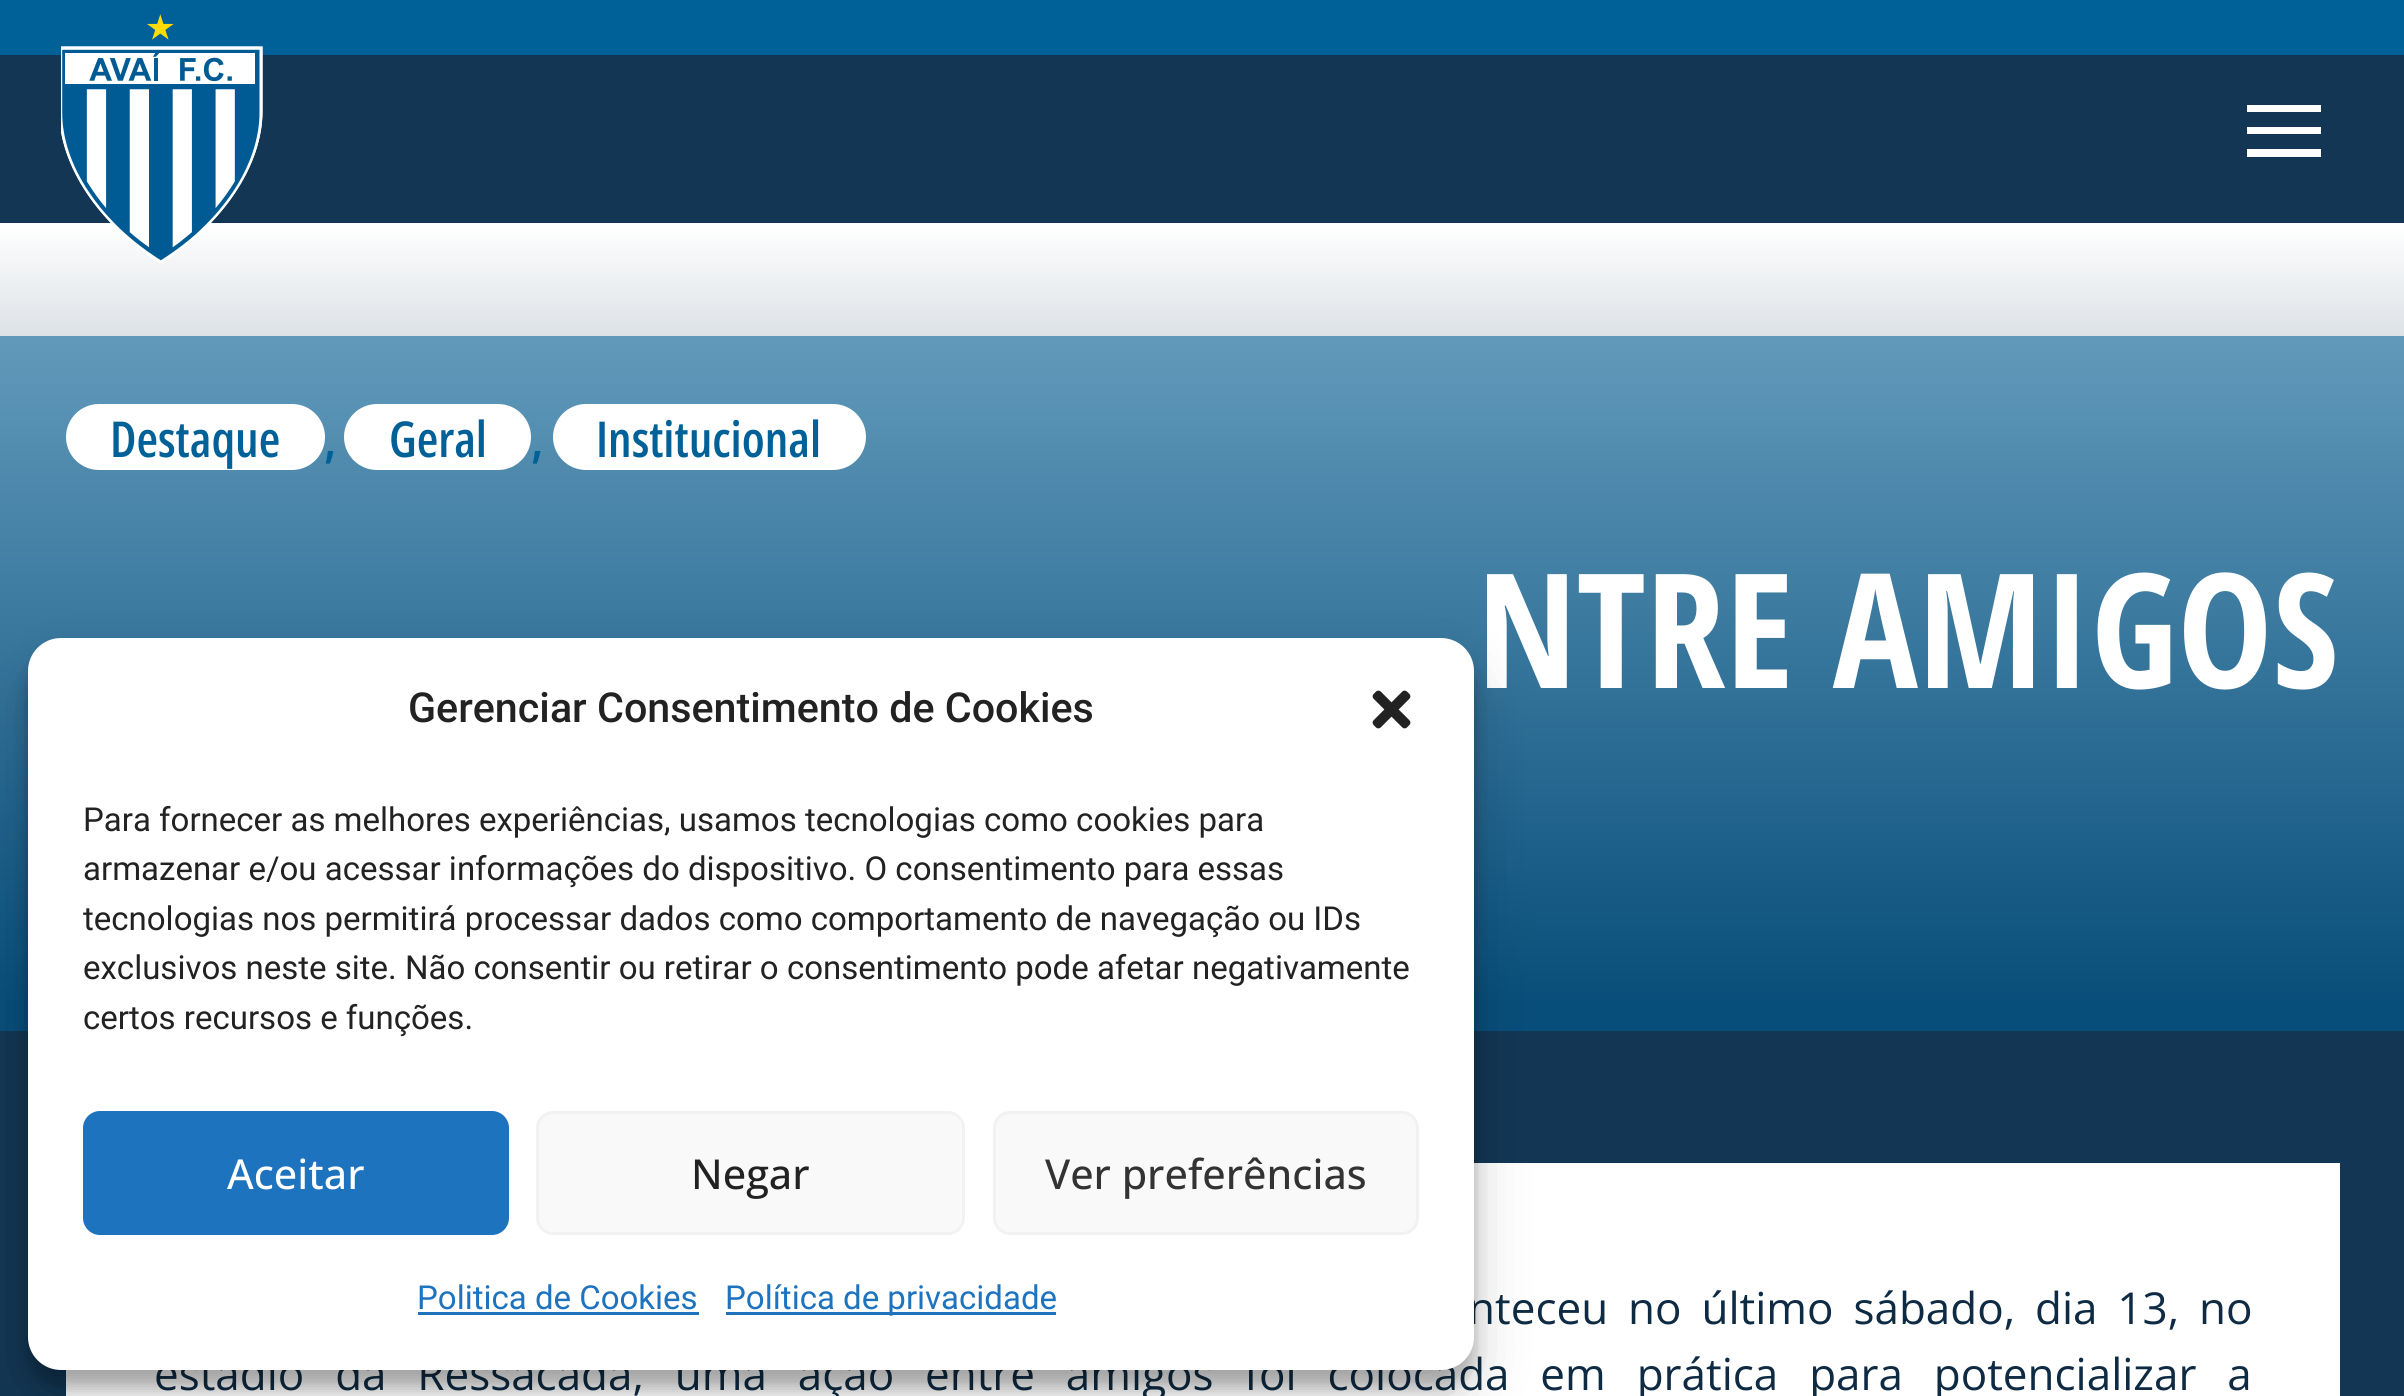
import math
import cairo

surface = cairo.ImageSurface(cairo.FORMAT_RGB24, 2404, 1396)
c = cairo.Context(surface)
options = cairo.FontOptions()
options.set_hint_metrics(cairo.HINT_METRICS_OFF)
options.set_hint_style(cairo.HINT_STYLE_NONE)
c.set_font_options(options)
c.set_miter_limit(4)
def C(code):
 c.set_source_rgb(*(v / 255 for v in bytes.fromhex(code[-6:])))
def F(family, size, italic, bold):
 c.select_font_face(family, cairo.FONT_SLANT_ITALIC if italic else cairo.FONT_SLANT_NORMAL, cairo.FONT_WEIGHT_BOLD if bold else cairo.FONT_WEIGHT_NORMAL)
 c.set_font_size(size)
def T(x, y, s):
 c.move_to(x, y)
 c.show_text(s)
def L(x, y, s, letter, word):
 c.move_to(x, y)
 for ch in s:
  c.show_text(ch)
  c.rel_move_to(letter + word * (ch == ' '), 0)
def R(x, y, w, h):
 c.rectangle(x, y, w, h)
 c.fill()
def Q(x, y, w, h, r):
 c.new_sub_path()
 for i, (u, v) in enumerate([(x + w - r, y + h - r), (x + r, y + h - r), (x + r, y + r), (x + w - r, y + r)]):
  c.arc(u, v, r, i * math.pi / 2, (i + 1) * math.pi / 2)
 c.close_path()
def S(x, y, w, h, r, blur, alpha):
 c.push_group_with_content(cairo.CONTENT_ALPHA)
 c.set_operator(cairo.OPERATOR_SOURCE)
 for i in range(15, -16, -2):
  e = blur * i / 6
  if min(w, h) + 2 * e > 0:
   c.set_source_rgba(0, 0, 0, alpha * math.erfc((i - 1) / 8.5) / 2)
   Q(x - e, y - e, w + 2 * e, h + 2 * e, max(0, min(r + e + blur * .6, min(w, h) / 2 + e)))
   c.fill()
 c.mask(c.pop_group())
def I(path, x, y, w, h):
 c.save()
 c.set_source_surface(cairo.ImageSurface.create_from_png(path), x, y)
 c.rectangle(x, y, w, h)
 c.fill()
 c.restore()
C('ffffff')
c.paint()
C('123654')
R(0,55,2404,168)
C('006098')
R(0,0,2404,55)
gradient = cairo.LinearGradient(1203,1339,1203,223)
gradient.add_color_stop_rgba(.3,0.071,0.212,0.329,1)
gradient.add_color_stop_rgba(1,1,1,1,1)
c.set_source(gradient)
R(0,231,2404,1108)
I('1.png',61,14,202,250)
C('ffffff')
c.new_path()
c.move_to(2247,105)
c.line_to(2247,112)
c.line_to(2321,112)
c.line_to(2321,105)
c.close_path()
c.move_to(2247,127)
c.line_to(2247,134)
c.line_to(2321,134)
c.line_to(2321,127)
c.close_path()
c.move_to(2247,149)
c.line_to(2247,157)
c.line_to(2321,157)
c.line_to(2321,149)
c.close_path()
c.fill()
gradient = cairo.LinearGradient(1203,1339,1203,223)
gradient.add_color_stop_rgba(.3,0.031,0.306,0.478,1)
gradient.add_color_stop_rgba(1,0.439,0.651,0.773,1)
c.set_source(gradient)
R(0,336,2404,695)
C('ffffff')
Q(66,404,259,66,33)
c.fill()
F('Open Sans Condensed SemiBold',49.5,0,0)
C('006098')
T(110,457,'Destaque')
T(324,457,',')
C('ffffff')
Q(344,404,187,66,33)
c.fill()
C('006098')
T(389,457,'Geral')
T(531,457,',')
C('ffffff')
Q(553,404,313,66,33)
c.fill()
C('006098')
T(596,457,'Institucional')
F('Open Sans Condensed',159.5,0,1)
C('ffffff')
T(1477,688,'NTRE AMIGOS')
C('123654')
R(0,1339,2404,57)
C('ffffff')
R(66,1163,2274,233)
F('Open Sans',44,0,0)
C('0e2b43')
L(1468,1324,'nteceu no último sábado, dia 13, no',0,8.5)
L(154,1390,'estádio da Ressacada, uma ação entre amigos foi colocada em prática para potencializar a',0,19.4)
C('000000')
S(28,655,1446,731,33,8,.23)
S(28,666,1446,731,33,27.5,.19)
C('ffffff')
Q(28,638,1446,732,33)
c.fill()
F('Roboto Medium',41.25,0,0)
C('222222')
T(408,722,'Gerenciar Consentimento de Cookies')
I('2.png',1372,690,39,39)
F('Roboto',33,0,0)
T(83,831,'Para fornecer as melhores experiências, usamos tecnologias como cookies para')
T(83,880,'armazenar e/ou acessar informações do dispositivo. O consentimento para essas')
c.save()
c.rectangle(83,795,1336,261)
c.clip()
T(83,930,'tecnologias nos permitirá processar dados como comportamento de navegação ou IDs')
c.restore()
T(83,979,'exclusivos neste site. Não consentir ou retirar o consentimento pode afetar negativamente')
T(83,1029,'certos recursos e funções.')
C('1e73be')
Q(84.5,1112.5,423,121,15.5)
c.fill_preserve()
c.set_line_width(3)
c.stroke()
F('Open Sans Medium',41.25,0,0)
C('ffffff')
T(227,1189,'Aceitar')
C('f9f9f9')
Q(537.5,1112.5,426,121,15.5)
c.fill_preserve()
C('f2f2f2')
c.stroke()
C('222222')
T(691,1189,'Negar')
C('f9f9f9')
Q(994.5,1112.5,423,121,15.5)
c.fill_preserve()
C('f2f2f2')
c.stroke()
C('333333')
T(1045,1189,'Ver preferências')
F('Roboto',33,0,0)
C('1e73be')
T(417,1309,'Politica de Cookies')
R(418,1312,281,3)
R(726,1312,330,3)
T(725,1309,'Política de privacidade')
surface.write_to_png('o.png')
